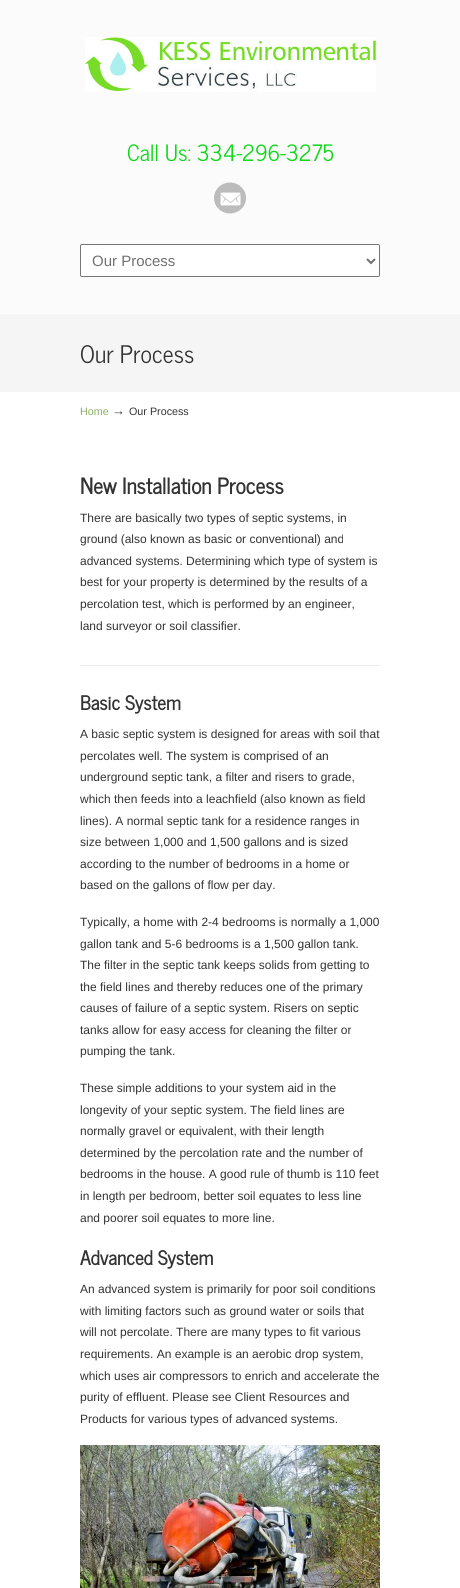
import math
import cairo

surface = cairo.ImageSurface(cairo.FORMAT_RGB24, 460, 1588)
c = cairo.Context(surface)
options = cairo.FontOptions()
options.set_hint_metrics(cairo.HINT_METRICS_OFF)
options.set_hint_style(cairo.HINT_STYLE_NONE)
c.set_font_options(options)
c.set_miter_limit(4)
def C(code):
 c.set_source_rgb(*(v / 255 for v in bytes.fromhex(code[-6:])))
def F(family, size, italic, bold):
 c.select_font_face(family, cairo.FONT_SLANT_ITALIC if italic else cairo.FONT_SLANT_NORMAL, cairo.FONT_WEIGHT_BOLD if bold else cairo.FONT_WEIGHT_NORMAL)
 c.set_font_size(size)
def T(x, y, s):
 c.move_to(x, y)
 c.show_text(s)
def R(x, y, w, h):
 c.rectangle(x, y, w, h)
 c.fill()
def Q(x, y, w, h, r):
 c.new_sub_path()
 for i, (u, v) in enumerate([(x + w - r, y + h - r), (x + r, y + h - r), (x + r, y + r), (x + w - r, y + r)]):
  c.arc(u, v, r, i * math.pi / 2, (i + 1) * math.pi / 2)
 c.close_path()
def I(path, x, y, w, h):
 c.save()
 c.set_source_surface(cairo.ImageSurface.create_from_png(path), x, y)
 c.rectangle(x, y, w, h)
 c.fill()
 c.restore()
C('fbfbfb')
c.paint()
I('1.png',85,37,291,55)
F('News Cycle',22.4,0,0)
C('0ed818')
T(127,161,'Call Us: 334-296-3275')
I('2.png',214,182,32,32)
C('ffffff')
Q(80.5,244.5,299,32,1.5)
c.fill_preserve()
C('767676')
c.set_line_width(1)
c.stroke()
c.new_path()
c.move_to(367,259)
c.line_to(371,263)
c.line_to(375,259)
C('717171')
c.set_line_width(2)
c.stroke()
F('Liberation Sans',15,0,0)
T(92,266,'Our Process')
C('f5f5f5')
R(0,314,460,78)
F('News Cycle',24,0,0)
C('333333')
T(80,363,'Our Process')
C('ffffff')
R(0,392,460,1196)
F('Liberation Sans',10.75,0,0)
C('8bb263')
T(80,415,'Home')
F('Liberation Sans',13,0,0)
C('333333')
T(112,415,'→')
F('Liberation Sans',10.75,0,0)
T(129,415,'Our Process')
F('News Cycle',21.5,0,1)
T(80,494,'New Installation Process')
F('Liberation Sans',12,0,0)
T(80,522,'There are basically two types of septic systems, in')
T(80,543,'ground (also known as basic or conventional) and')
T(80,565,'advanced systems. Determining which type of system is')
T(80,586,'best for your property is determined by the results of a')
T(80,608,'percolation test, which is performed by an engineer,')
T(80,630,'land surveyor or soil classifier.')
C('ededed')
R(80,665,300,1)
F('News Cycle',19.25,0,1)
C('333333')
T(80,710,'Basic System')
F('Liberation Sans',12,0,0)
T(80,738,'A basic septic system is designed for areas with soil that')
T(80,760,'percolates well. The system is comprised of an')
T(80,781,'underground septic tank, a filter and risers to grade,')
T(80,803,'which then feeds into a leachfield (also known as field')
T(80,825,'lines). A normal septic tank for a residence ranges in')
T(80,846,'size between 1,000 and 1,500 gallons and is sized')
T(80,868,'according to the number of bedrooms in a home or')
T(80,889,'based on the gallons of flow per day.')
T(80,926,'Typically, a home with 2-4 bedrooms is normally a 1,000')
T(80,948,'gallon tank and 5-6 bedrooms is a 1,500 gallon tank.')
T(80,969,'The filter in the septic tank keeps solids from getting to')
T(80,991,'the field lines and thereby reduces one of the primary')
T(80,1012,'causes of failure of a septic system. Risers on septic')
T(80,1034,'tanks allow for easy access for cleaning the filter or')
T(80,1055,'pumping the tank.')
T(80,1092,'These simple additions to your system aid in the')
T(80,1114,'longevity of your septic system. The field lines are')
T(80,1135,'normally gravel or equivalent, with their length')
T(80,1157,'determined by the percolation rate and the number of')
T(80,1178,'bedrooms in the house. A good rule of thumb is 110 feet')
T(80,1200,'in length per bedroom, better soil equates to less line')
T(80,1222,'and poorer soil equates to more line.')
F('News Cycle',19.25,0,1)
T(80,1265,'Advanced System')
F('Liberation Sans',12,0,0)
T(80,1293,'An advanced system is primarily for poor soil conditions')
T(80,1315,'with limiting factors such as ground water or soils that')
T(80,1336,'will not percolate. There are many types to fit various')
T(80,1358,'requirements. An example is an aerobic drop system,')
T(80,1380,'which uses air compressors to enrich and accelerate the')
T(80,1401,'purity of effluent. Please see Client Resources and')
T(80,1423,'Products for various types of advanced systems.')
I('3.png',80,1445,300,143)
surface.write_to_png('o.png')
